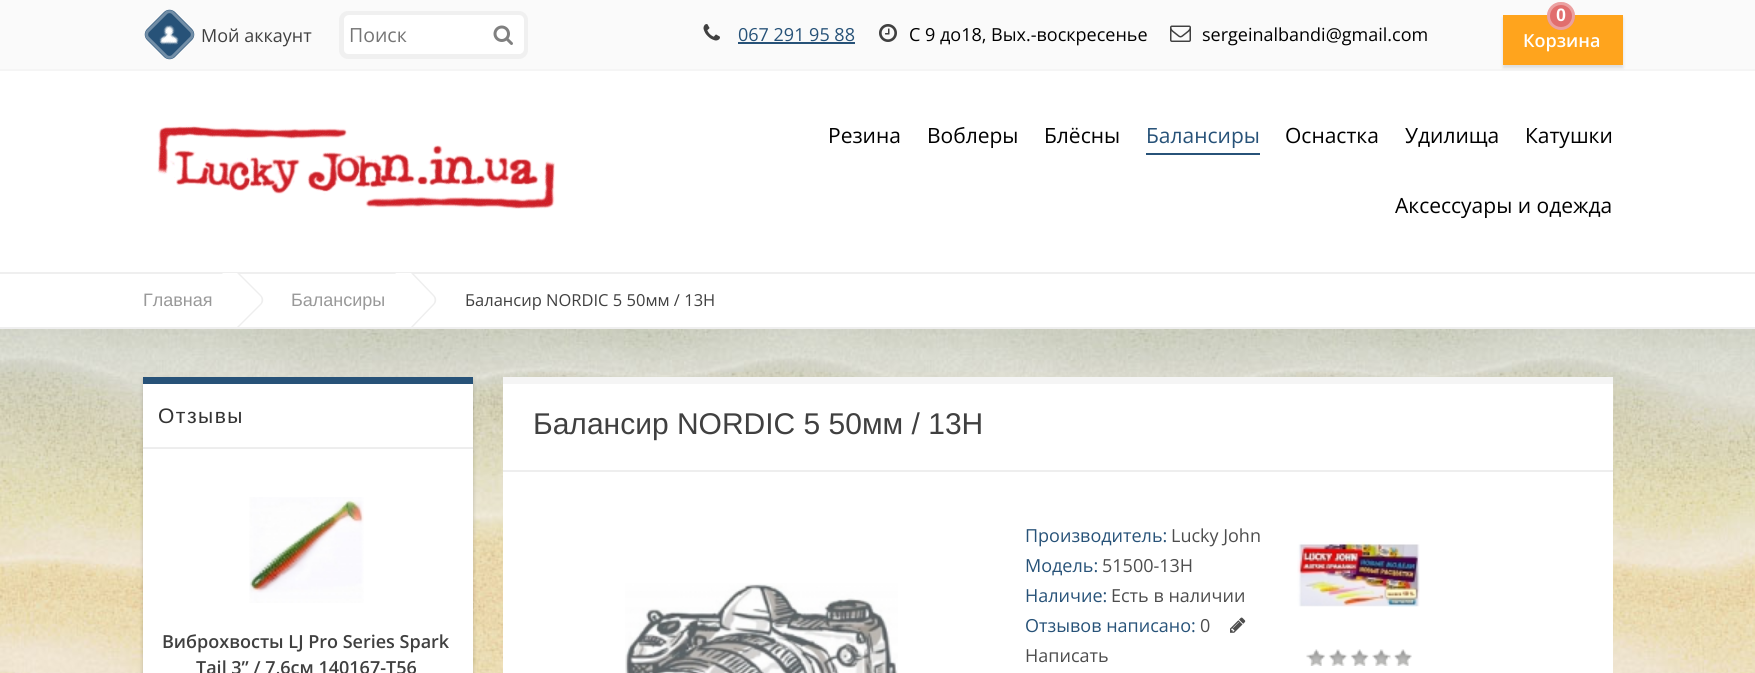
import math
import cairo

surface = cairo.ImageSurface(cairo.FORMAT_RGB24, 1755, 673)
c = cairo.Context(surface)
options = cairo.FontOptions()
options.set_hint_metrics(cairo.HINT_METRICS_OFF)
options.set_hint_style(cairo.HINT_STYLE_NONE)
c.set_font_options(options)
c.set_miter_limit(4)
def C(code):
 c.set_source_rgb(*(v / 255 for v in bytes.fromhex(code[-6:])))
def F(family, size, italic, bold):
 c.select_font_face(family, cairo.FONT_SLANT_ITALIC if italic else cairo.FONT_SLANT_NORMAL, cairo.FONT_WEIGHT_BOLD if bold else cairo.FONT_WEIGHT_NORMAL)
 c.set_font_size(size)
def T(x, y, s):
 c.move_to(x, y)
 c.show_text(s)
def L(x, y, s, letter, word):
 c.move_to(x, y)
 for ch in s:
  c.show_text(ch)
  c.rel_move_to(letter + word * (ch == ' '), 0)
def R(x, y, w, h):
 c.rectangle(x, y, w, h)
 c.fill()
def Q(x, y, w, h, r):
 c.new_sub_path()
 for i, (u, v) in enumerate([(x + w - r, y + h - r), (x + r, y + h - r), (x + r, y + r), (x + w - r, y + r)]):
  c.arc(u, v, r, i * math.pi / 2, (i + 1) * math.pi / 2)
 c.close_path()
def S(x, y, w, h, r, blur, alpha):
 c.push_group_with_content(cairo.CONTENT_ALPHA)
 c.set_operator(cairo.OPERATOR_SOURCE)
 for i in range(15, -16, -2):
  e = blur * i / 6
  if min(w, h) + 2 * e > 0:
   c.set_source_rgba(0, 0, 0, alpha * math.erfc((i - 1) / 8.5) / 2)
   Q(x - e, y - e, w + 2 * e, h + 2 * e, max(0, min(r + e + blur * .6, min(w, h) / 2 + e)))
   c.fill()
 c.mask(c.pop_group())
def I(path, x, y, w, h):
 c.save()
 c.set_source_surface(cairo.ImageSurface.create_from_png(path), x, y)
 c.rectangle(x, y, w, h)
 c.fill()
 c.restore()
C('ffffff')
c.paint()
C('fafafa')
R(0,0,1755,69)
C('f5f5f5')
R(0,69,1755,2)
C('275278')
c.new_path()
c.move_to(175,12)
c.line_to(192,29)
c.curve_to(195,32,195,37,192,40)
c.line_to(175,57)
c.curve_to(172,60,167,60,164,57)
c.line_to(147,40)
c.curve_to(144,37,144,32,147,29)
c.line_to(164,12)
c.curve_to(167,9,172,9,175,12)
c.close_path()
c.fill()
I('1.png',159,25,20,20)
c.new_path()
c.move_to(173.5,13.5)
c.line_to(190.5,30.5)
c.curve_to(193,32.5,193,36.5,190.5,38.5)
c.line_to(173.5,55.5)
c.curve_to(171.5,58,167.5,58,165.5,55.5)
c.line_to(148.5,38.5)
c.curve_to(146,36.5,146,32.5,148.5,30.5)
c.line_to(165.5,13.5)
c.curve_to(167.5,11,171.5,11,173.5,13.5)
c.close_path()
c.set_source_rgba(1,1,1,0.35)
c.set_line_width(3)
c.stroke()
F('Open Sans',18,0,0)
C('404040')
T(201,42,'Мой аккаунт')
Q(341.5,13.5,184,43,6.5)
C('f0f0f0')
c.set_line_width(5)
c.stroke()
C('ffffff')
Q(345,16,178,37,4)
c.fill_preserve()
c.set_line_width(2)
c.stroke()
F('Open Sans',19.5,0,0)
C('757575')
T(349,42,'Поиск')
I('2.png',493,25,20,20)
I('3.png',703,24,17,17)
F('Open Sans',18,0,0)
C('275278')
T(738,41,'067 291 95 88')
R(738,42,117,2)
I('4.png',879,24,18,18)
C('000000')
T(909,41,'С 9 до18, Вых.-воскресенье')
I('5.png',1170,25,21,17)
T(1202,41,'sergeinalbandi@gmail.com')
C('dddddd')
S(1503,18,120,50,0,1.5,1)
C('ffa41d')
R(1503,15,120,50)
C('e16e6e')
c.arc(1561,16,14,0,2 * math.pi)
c.fill()
c.arc(1561,16,12.5,0,2 * math.pi)
c.set_source_rgba(1,1,1,0.35)
c.set_line_width(3)
c.stroke()
F('Liberation Sans',18,0,1)
C('ffffff')
T(1556,21,'0')
F('Open Sans SemiBold',18,0,0)
T(1523,47,'Корзина')
I('6.png',157,125,398,84)
F('Open Sans',21,0,0)
C('000000')
T(828,143,'Резина')
T(927,143,'Воблеры')
T(1044,143,'Блёсны')
C('275278')
R(1146,153,114,2)
T(1146,143,'Балансиры')
C('000000')
T(1285,143,'Оснастка')
T(1405,143,'Удилища')
T(1525,143,'Катушки')
T(1395,213,'Аксессуары и одежда')
I('7.png',0,329,1755,344)
C('efefef')
R(0,272,1755,2)
R(0,327,1755,2)
c.save()
c.rectangle(135,273,1485,54)
c.clip()
C('eeeeee')
c.new_path()
c.move_to(237,271)
c.line_to(261,295)
c.curve_to(264,298,264,302,261,305)
c.line_to(237,329)
c.curve_to(234,332,230,332,227,329)
c.line_to(203,305)
c.curve_to(201,302,201,298,203,295)
c.line_to(227,271)
c.curve_to(230,268,234,268,237,271)
c.close_path()
c.fill()
C('ffffff')
c.new_path()
c.move_to(234,270)
c.line_to(260,296)
c.curve_to(262,298,262,302,260,304)
c.line_to(234,330)
c.curve_to(232,332,228,332,226,330)
c.line_to(200,304)
c.curve_to(198,302,198,298,200,296)
c.line_to(226,270)
c.curve_to(228,268,232,268,234,270)
c.close_path()
c.fill()
c.restore()
F('Liberation Sans',18,0,0)
C('999999')
T(143,306,'Главная')
c.save()
c.rectangle(135,273,1485,54)
c.clip()
C('eeeeee')
c.new_path()
c.move_to(411,271)
c.line_to(434,295)
c.curve_to(437,298,437,302,434,305)
c.line_to(411,329)
c.curve_to(408,332,403,332,400,329)
c.line_to(377,305)
c.curve_to(374,302,374,298,377,295)
c.line_to(400,271)
c.curve_to(403,268,408,268,411,271)
c.close_path()
c.fill()
C('ffffff')
c.new_path()
c.move_to(408,270)
c.line_to(433,296)
c.curve_to(435,298,435,302,433,304)
c.line_to(408,330)
c.curve_to(405,332,402,332,399,330)
c.line_to(374,304)
c.curve_to(371,302,371,298,374,296)
c.line_to(399,270)
c.curve_to(402,268,405,268,408,270)
c.close_path()
c.fill()
c.restore()
T(291,306,'Балансиры')
F('Open Sans',16.5,0,0)
C('404040')
T(465,306,'Балансир NORDIC 5 50мм / 13H')
C('000000')
S(143,380,330,72,0,2,.2)
C('ffffff')
R(143,384,330,63)
C('275278')
R(143,377,330,7)
C('eeeeee')
R(143,447,330,2)
F('Liberation Sans',21,0,0)
C('333333')
L(158,423,'Отзывы',1.5,0)
C('000000')
S(143,452,330,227,0,2,.2)
C('ffffff')
R(143,449,330,224)
I('8.png',249,497,115,106)
F('Open Sans SemiBold',18,0,0)
C('404040')
T(162,648,'Виброхвосты LJ Pro Series Spark')
T(196,674,'Tail 3” / 7,6см 140167-T56')
C('ffffff')
R(503,384,1110,289)
C('f5f5f5')
R(503,377,1110,7)
C('eeeeee')
R(503,470,1110,2)
F('Liberation Sans',30,0,0)
C('404040')
T(533,434,'Балансир NORDIC 5 50мм / 13H')
I('9.png',625,583,273,90)
F('Open Sans',18,0,0)
C('275278')
T(1025,542,'Производитель:')
C('4d4d4d')
T(1171,542,'Lucky John')
C('275278')
T(1025,572,'Модель:')
C('4d4d4d')
T(1102,572,'51500-13H')
C('275278')
T(1025,602,'Наличие:')
C('4d4d4d')
T(1111,602,'Есть в наличии')
C('275278')
T(1025,632,'Отзывов написано:')
C('4d4d4d')
T(1200,632,'0')
I('10.png',1230,617,16,16)
T(1025,662,'Написать')
I('11.png',1297,541,123,66)
I('12.png',1306,649,106,17)
surface.write_to_png('o.png')
